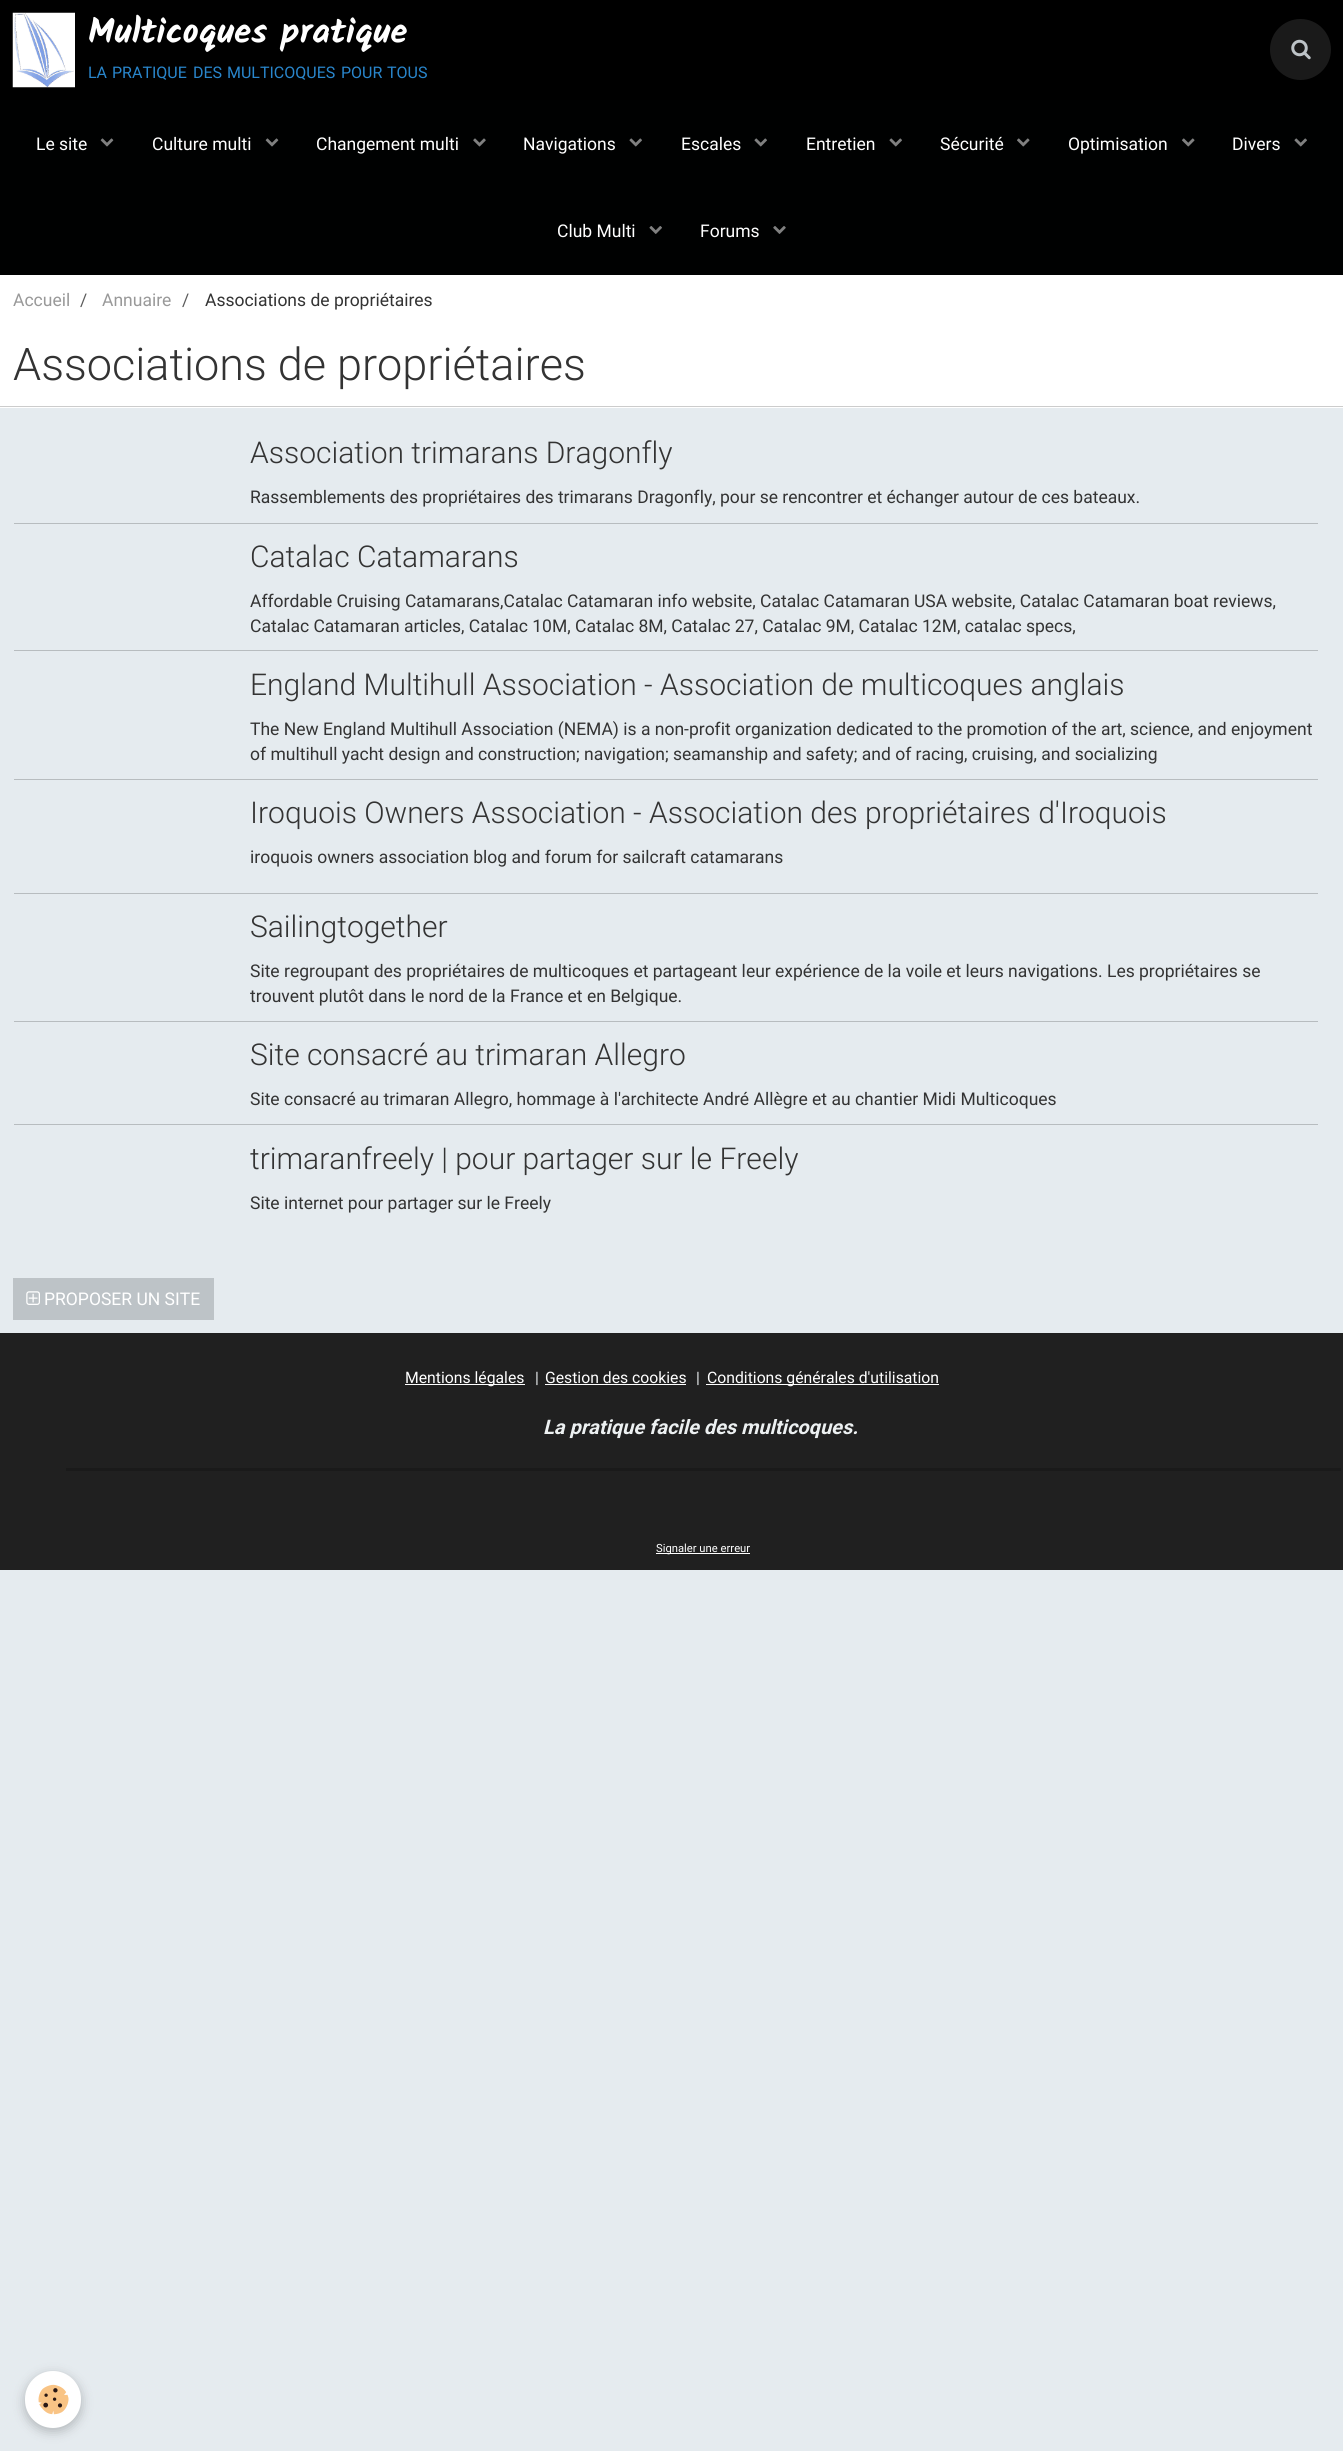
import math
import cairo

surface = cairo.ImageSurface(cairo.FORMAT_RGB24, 1343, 2451)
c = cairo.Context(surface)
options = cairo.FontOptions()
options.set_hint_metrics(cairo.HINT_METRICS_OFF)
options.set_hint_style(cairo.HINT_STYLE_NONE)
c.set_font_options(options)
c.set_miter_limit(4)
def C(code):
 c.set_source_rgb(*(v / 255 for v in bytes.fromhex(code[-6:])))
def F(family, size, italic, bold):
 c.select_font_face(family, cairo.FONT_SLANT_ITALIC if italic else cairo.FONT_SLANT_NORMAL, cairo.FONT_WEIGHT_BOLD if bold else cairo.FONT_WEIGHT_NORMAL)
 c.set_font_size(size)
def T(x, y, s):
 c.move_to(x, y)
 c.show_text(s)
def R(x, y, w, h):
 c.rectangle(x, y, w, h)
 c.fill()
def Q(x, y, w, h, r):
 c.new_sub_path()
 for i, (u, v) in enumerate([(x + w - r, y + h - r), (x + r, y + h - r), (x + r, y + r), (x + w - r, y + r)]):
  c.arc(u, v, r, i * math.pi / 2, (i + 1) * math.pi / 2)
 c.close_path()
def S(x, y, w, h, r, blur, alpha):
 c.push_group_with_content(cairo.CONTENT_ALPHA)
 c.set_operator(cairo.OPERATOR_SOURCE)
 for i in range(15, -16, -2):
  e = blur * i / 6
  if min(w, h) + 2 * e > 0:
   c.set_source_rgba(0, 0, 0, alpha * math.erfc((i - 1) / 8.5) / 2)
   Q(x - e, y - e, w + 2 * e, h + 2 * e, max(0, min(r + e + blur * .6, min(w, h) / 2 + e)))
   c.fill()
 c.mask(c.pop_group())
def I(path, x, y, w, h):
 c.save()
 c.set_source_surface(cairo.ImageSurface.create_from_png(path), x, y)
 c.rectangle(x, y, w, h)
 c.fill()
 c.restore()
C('e5ebef')
c.paint()
C('000000')
R(0,0,1343,100)
I('1.png',12,12,63,76)
F('Kalam',35,0,1)
C('ffffff')
T(88,43,'Multicoques pratique')
F('Roboto',16,0,0)
C('2986cc')
T(88,78,'LA')
T(112,78,'PRATIQUE')
T(193,78,'DES')
T(227,78,'MULTICOQUES')
T(341,78,'POUR')
T(387,78,'TOUS')
C('1a1a1a')
c.new_path()
c.arc(1300.5,49.5,30.5,0,2 * math.pi)
c.fill()
I('2.png',1291,39,20,21)
C('000101')
R(0,100,1343,175)
F('Roboto',17.5,0,0)
C('ffffff')
T(36,150,'Le site')
I('3.png',100,138,14,9)
T(152,150,'Culture multi')
I('3.png',265,138,14,9)
T(316,150,'Changement multi')
I('4.png',473,138,13,9)
T(523,150,'Navigations')
I('5.png',629,138,13,9)
T(681,150,'Escales')
I('5.png',754,138,13,9)
T(806,150,'Entretien')
I('5.png',889,138,13,9)
T(940,150,'Sécurité')
I('6.png',1017,138,13,9)
T(1068,150,'Optimisation')
I('6.png',1182,138,13,9)
T(1232,150,'Divers')
I('5.png',1294,138,13,9)
T(557,237,'Club Multi')
I('7.png',649,226,13,8)
T(700,237,'Forums')
I('8.png',773,226,13,8)
R(0,275,1343,133)
C('999999')
T(13,306,'Accueil')
C('5c5c5c')
T(80,306,'/')
C('999999')
T(102,306,'Annuaire')
C('5c5c5c')
T(182,306,'/')
C('333333')
T(205,306,'Associations de propriétaires')
C('cccccc')
R(0,406,1343,1)
F('Roboto Light',45,0,0)
C('333333')
T(13,380,'Associations de propriétaires')
C('b7bcbf')
R(14,523,1304,1)
F('Roboto Light',30,0,0)
C('333333')
T(250,463,'Association trimarans Dragonfly')
F('Roboto',17.5,0,0)
T(250,503,'Rassemblements des propriétaires des trimarans Dragonfly, pour se rencontrer et échanger autour de ces bateaux.')
C('b7bcbf')
R(14,650,1304,1)
F('Roboto Light',30,0,0)
C('333333')
T(250,567,'Catalac Catamarans')
F('Roboto',17.5,0,0)
T(250,607,'Affordable Cruising Catamarans,Catalac Catamaran info website, Catalac Catamaran USA website, Catalac Catamaran boat reviews,')
T(250,632,'Catalac Catamaran articles, Catalac 10M, Catalac 8M, Catalac 27, Catalac 9M, Catalac 12M, catalac specs,')
C('b7bcbf')
R(14,779,1304,1)
F('Roboto Light',30,0,0)
C('333333')
T(250,695,'England Multihull Association - Association de multicoques anglais')
F('Roboto',17.5,0,0)
T(250,735,'The New England Multihull Association (NEMA) is a non-profit organization dedicated to the promotion of the art, science, and enjoyment')
T(250,760,'of multihull yacht design and construction; navigation; seamanship and safety; and of racing, cruising, and socializing')
C('b7bcbf')
R(14,893,1304,1)
F('Roboto Light',30,0,0)
C('333333')
T(250,823,'Iroquois Owners Association - Association des propriétaires d\'Iroquois')
F('Roboto',17.5,0,0)
T(250,863,'iroquois owners association blog and forum for sailcraft catamarans')
C('b7bcbf')
R(14,1021,1304,1)
F('Roboto Light',30,0,0)
C('333333')
T(250,937,'Sailingtogether')
F('Roboto',17.5,0,0)
T(250,977,'Site regroupant des propriétaires de multicoques et partageant leur expérience de la voile et leurs navigations. Les propriétaires se')
T(250,1002,'trouvent plutôt dans le nord de la France et en Belgique.')
C('b7bcbf')
R(14,1124,1304,1)
F('Roboto Light',30,0,0)
C('333333')
T(250,1065,'Site consacré au trimaran Allegro')
F('Roboto',17.5,0,0)
T(250,1105,'Site consacré au trimaran Allegro, hommage à l\'architecte André Allègre et au chantier Midi Multicoques')
F('Roboto Light',30,0,0)
T(250,1169,'trimaranfreely | pour partager sur le Freely')
F('Roboto',17.5,0,0)
T(250,1209,'Site internet pour partager sur le Freely')
C('bdc3c7')
R(13,1278,201,42)
I('9.png',26,1291,14,14)
C('ffffff')
T(44,1305,'PROPOSER UN SITE')
C('202020')
R(0,1333,1343,237)
C('ffffff')
R(405,1384,120,1)
F('Roboto',15.75,0,0)
T(405,1383,'Mentions légales')
C('ecf0f1')
T(535,1383,'|')
C('ffffff')
T(545,1383,'Gestion des cookies')
R(545,1384,141,1)
C('ecf0f1')
T(696,1383,'|')
C('ffffff')
R(706,1384,233,1)
T(707,1383,'Conditions générales d\'utilisation')
F('Roboto',20,1,1)
C('ecf0f1')
T(543,1434,'La pratique facile des multicoques.')
C('1a1a1a')
R(66,1468,1275,3)
C('ffffff')
R(656,1553,94,1)
F('Roboto',11.25,0,0)
T(656,1552,'Signaler une erreur')
C('000000')
S(25,2375,56,56,28,6,.24)
C('ffffff')
Q(25,2371,56,57,28)
c.fill()
I('10.png',38,2384,31,31)
surface.write_to_png('o.png')
